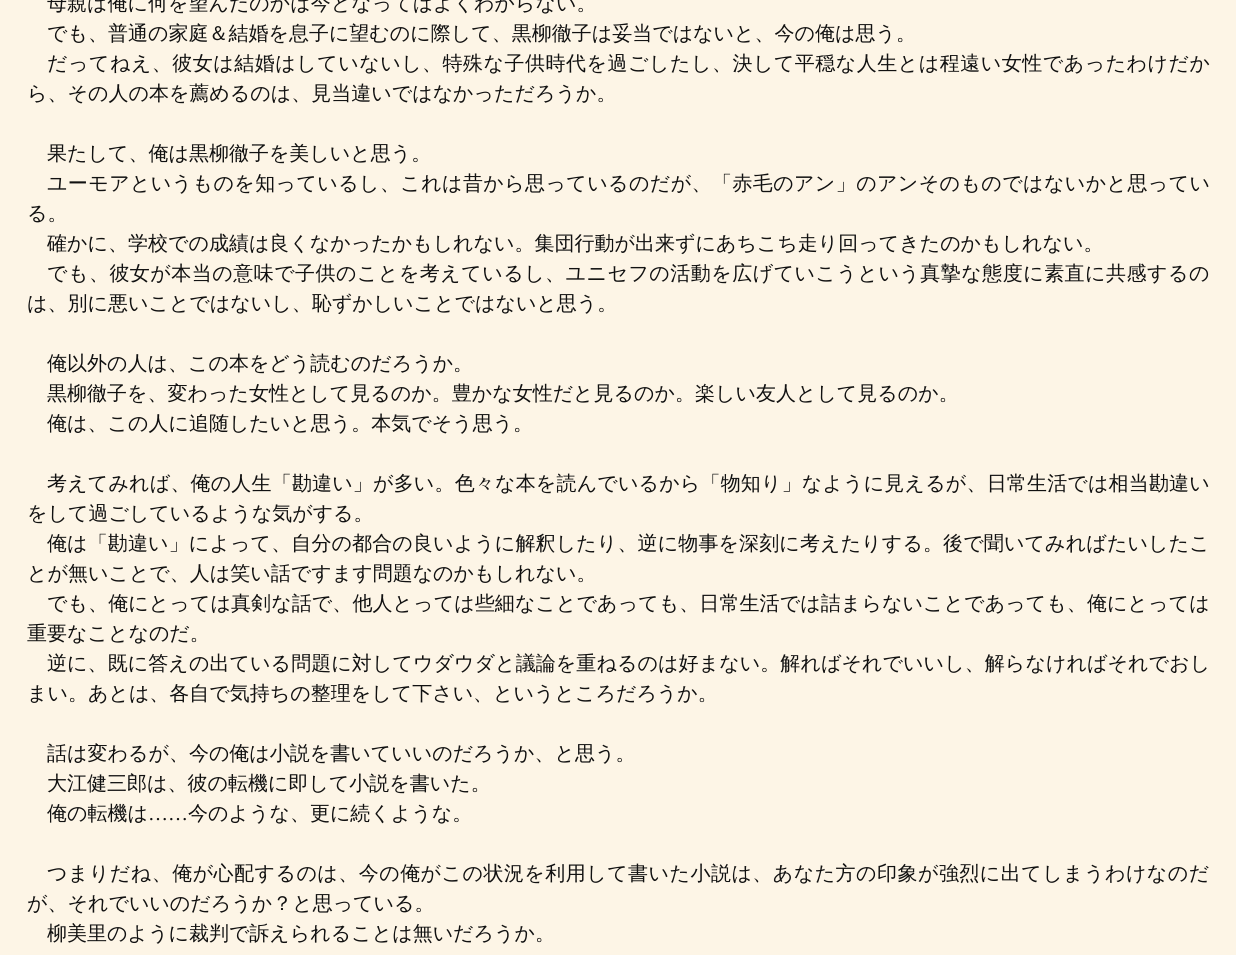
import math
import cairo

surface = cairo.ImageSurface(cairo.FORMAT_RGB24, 1236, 955)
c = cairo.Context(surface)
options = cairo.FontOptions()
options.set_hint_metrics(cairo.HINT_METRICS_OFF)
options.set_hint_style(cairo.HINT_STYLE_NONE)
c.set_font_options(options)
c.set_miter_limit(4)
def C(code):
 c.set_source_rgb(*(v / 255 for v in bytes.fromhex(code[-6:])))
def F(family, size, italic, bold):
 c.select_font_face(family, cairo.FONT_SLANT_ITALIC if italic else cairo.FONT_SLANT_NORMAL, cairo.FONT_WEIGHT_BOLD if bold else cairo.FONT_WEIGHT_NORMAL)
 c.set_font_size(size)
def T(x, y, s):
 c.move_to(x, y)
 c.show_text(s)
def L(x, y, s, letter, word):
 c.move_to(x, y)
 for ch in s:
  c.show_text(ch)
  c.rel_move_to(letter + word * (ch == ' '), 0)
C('fdf5e6')
c.paint()
F('WenQuanYi Zen Hei Medium',20,0,0)
C('111111')
T(47,10,'母親は俺に何を望んだのかは今となってはよくわからない。')
T(47,40,'でも、普通の家庭＆結婚を息子に望むのに際して、黒柳徹子は妥当ではないと、今の俺は思う。')
L(47,70,'だってねえ、彼女は結婚はしていないし、特殊な子供時代を過ごしたし、決して平穏な人生とは程遠い女性であったわけだか',.5,0)
T(27,100,'ら、その人の本を薦めるのは、見当違いではなかっただろうか。')
T(47,160,'果たして、俺は黒柳徹子を美しいと思う。')
L(47,190,'ユーモアというものを知っているし、これは昔から思っているのだが、「赤毛のアン」のアンそのものではないかと思ってい',.4,0)
T(27,220,'る。')
T(47,250,'確かに、学校での成績は良くなかったかもしれない。集団行動が出来ずにあちこち走り回ってきたのかもしれない。')
L(47,280,'でも、彼女が本当の意味で子供のことを考えているし、ユニセフの活動を広げていこうという真摯な態度に素直に共感するの',.48,0)
T(27,310,'は、別に悪いことではないし、恥ずかしいことではないと思う。')
T(47,370,'俺以外の人は、この本をどう読むのだろうか。')
T(47,400,'黒柳徹子を、変わった女性として見るのか。豊かな女性だと見るのか。楽しい友人として見るのか。')
T(47,430,'俺は、この人に追随したいと思う。本気でそう思う。')
L(47,490,'考えてみれば、俺の人生「勘違い」が多い。色々な本を読んでいるから「物知り」なように見えるが、日常生活では相当勘違い',.17,0)
T(27,520,'をして過ごしているような気がする。')
L(47,550,'俺は「勘違い」によって、自分の都合の良いように解釈したり、逆に物事を深刻に考えたりする。後で聞いてみればたいしたこ',.12,0)
T(27,580,'とが無いことで、人は笑い話ですます問題なのかもしれない。')
L(47,610,'でも、俺にとっては真剣な話で、他人とっては些細なことであっても、日常生活では詰まらないことであっても、俺にとっては',.08,0)
T(27,640,'重要なことなのだ。')
L(47,670,'逆に、既に答えの出ている問題に対してウダウダと議論を重ねるのは好まない。解ればそれでいいし、解らなければそれでおし',.07,0)
T(27,700,'まい。あとは、各自で気持ちの整理をして下さい、というところだろうか。')
T(47,760,'話は変わるが、今の俺は小説を書いていいのだろうか、と思う。')
T(47,790,'大江健三郎は、彼の転機に即して小説を書いた。')
T(47,820,'俺の転機は')
F('Liberation Serif',20,0,0)
T(148,820,'……')
F('WenQuanYi Zen Hei Medium',20,0,0)
T(188,820,'今のような、更に続くような。')
L(47,880,'つまりだね、俺が心配するのは、今の俺がこの状況を利用して書いた小説は、あなた方の印象が強烈に出てしまうわけなのだ',.47,0)
T(27,910,'が、それでいいのだろうか？と思っている。')
T(47,940,'柳美里のように裁判で訴えられることは無いだろうか。')
surface.write_to_png('o.png')
